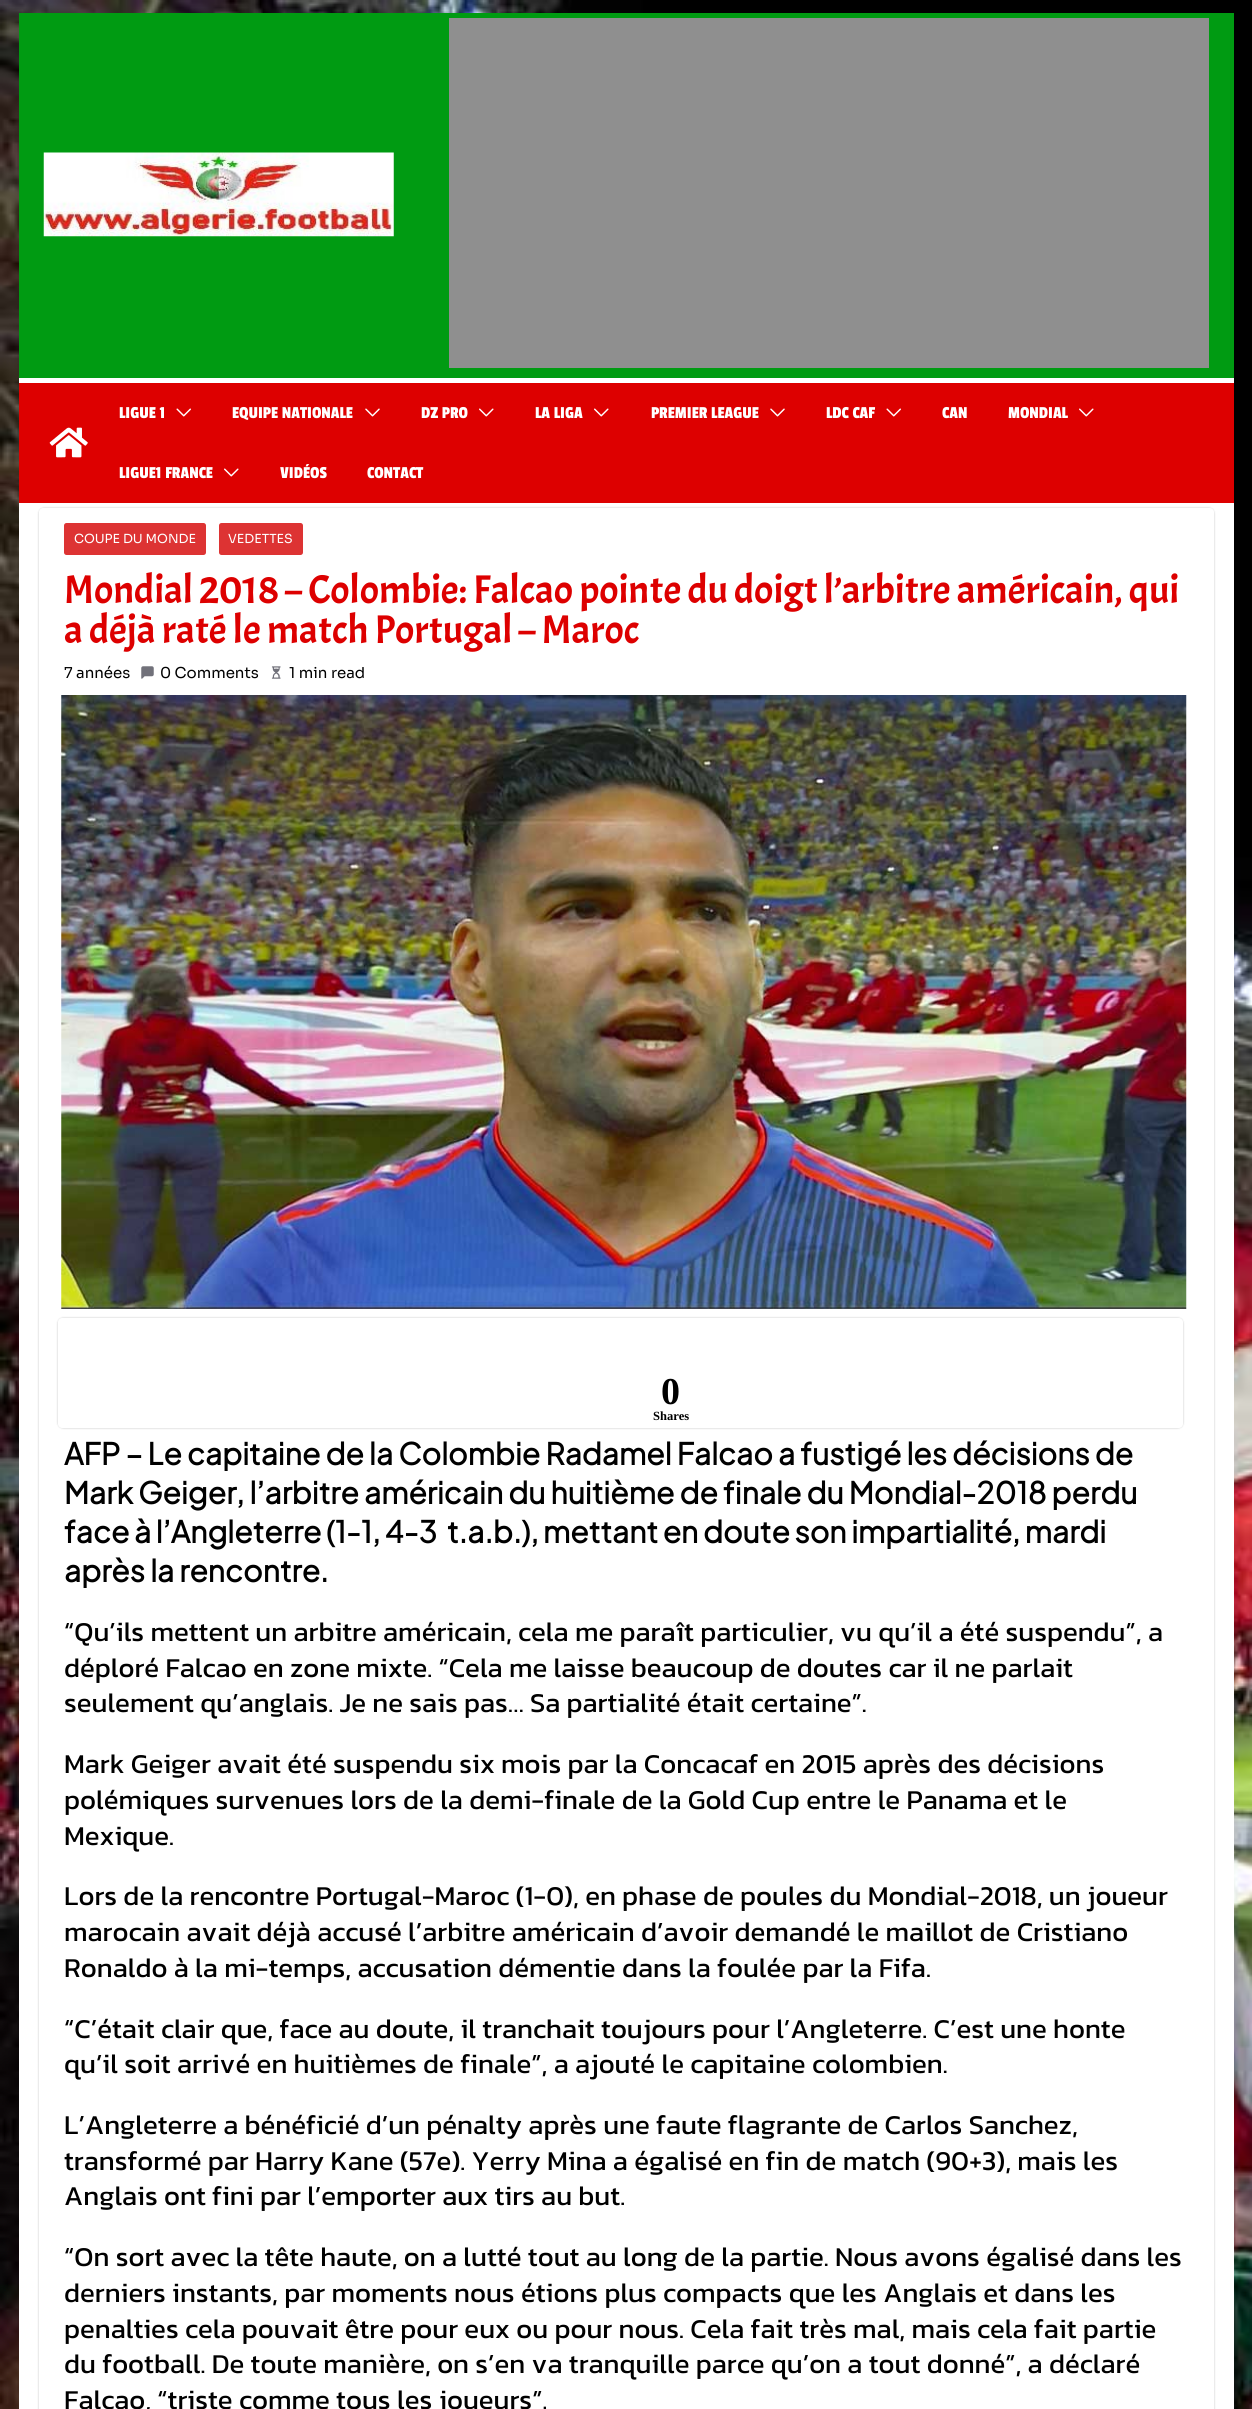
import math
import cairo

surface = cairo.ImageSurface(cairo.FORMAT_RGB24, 1252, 2409)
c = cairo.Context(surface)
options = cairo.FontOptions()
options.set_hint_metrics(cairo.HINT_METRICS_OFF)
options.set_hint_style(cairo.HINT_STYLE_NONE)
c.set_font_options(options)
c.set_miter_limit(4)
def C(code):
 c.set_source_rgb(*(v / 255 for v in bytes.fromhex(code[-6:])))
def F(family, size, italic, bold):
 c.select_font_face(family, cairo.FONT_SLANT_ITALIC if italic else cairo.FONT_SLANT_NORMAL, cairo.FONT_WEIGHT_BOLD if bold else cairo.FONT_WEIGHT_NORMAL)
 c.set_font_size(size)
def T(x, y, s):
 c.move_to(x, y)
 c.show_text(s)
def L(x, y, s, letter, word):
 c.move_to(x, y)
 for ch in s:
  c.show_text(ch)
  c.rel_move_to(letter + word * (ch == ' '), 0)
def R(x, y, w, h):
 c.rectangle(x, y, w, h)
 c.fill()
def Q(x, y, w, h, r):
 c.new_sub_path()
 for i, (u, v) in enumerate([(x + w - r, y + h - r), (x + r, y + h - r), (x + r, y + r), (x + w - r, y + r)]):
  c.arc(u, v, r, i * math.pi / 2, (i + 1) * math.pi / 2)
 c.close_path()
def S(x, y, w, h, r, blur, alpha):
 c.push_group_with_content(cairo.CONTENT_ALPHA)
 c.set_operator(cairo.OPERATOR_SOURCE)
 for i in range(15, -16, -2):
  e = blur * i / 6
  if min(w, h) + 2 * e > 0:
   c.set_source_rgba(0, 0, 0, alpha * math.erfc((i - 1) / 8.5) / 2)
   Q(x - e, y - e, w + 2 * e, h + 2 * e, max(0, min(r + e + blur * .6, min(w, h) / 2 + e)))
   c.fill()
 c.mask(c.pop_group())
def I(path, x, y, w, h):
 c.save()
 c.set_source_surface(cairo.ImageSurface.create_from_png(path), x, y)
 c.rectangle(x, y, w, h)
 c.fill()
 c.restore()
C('ffffff')
c.paint()
I('1.png',0,0,1252,2409)
C('009b12')
R(19,13,1215,365)
I('2.png',43,152,351,85)
C('8f8f8f')
R(449,18,760,350)
C('dd0000')
R(19,383,1215,120)
C('ffffff')
R(19,378,1215,5)
I('3.png',49,427,39,31)
F('Passion One',17.5,0,0)
T(119,418,'LIGUE 1')
I('4.png',176,408,15,9)
T(232,418,'EQUIPE NATIONALE')
I('5.png',365,408,15,9)
T(421,418,'DZ PRO')
I('6.png',479,408,15,9)
T(535,418,'LA LIGA')
I('6.png',594,408,15,9)
T(651,418,'PREMIER LEAGUE')
I('5.png',770,408,15,9)
T(826,418,'LDC CAF')
I('4.png',886,408,15,9)
T(942,418,'CAN')
T(1008,418,'MONDIAL')
I('6.png',1079,408,15,9)
T(119,478,'LIGUE1 FRANCE')
I('6.png',224,468,15,9)
T(280,478,'VIDÉOS')
T(367,478,'CONTACT')
R(19,503,1215,1906)
c.save()
c.set_fill_rule(cairo.FILL_RULE_EVEN_ODD)
c.new_path()
c.move_to(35,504)
c.line_to(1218,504)
c.line_to(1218,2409)
c.line_to(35,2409)
c.close_path()
c.move_to(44,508)
c.line_to(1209,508)
c.curve_to(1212,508,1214,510,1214,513)
c.line_to(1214,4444)
c.curve_to(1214,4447,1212,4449,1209,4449)
c.line_to(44,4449)
c.curve_to(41,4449,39,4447,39,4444)
c.line_to(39,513)
c.curve_to(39,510,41,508,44,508)
c.close_path()
c.clip()
C('000000')
S(39,508,1175,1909,5,1,.24)
c.restore()
C('dd3333')
Q(64,523,142,32,2.5)
c.fill()
F('Sora',12.5,0,0)
C('ffffff')
T(74,543,'COUPE DU MONDE')
C('dd3333')
Q(219,523,84,32,2.5)
c.fill()
C('ffffff')
T(228,543,'VEDETTES')
F('Acme',40,0,0)
C('dd0000')
T(64,603,'Mondial 2018 – Colombie: Falcao pointe du doigt l’arbitre américain, qui')
T(64,643,'a déjà raté le match Portugal – Maroc')
F('Sora',15,0,0)
C('000000')
T(64,678,'7 années')
I('7.png',141,666,13,13)
T(160,678,'0 Comments')
I('8.png',271,666,10,13)
T(289,678,'1 min read')
I('9.png',61,695,1126,614)
c.save()
c.set_fill_rule(cairo.FILL_RULE_EVEN_ODD)
c.new_path()
c.move_to(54,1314)
c.line_to(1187,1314)
c.line_to(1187,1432)
c.line_to(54,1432)
c.close_path()
c.move_to(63,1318)
c.line_to(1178,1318)
c.curve_to(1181,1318,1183,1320,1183,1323)
c.line_to(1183,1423)
c.curve_to(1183,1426,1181,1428,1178,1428)
c.line_to(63,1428)
c.curve_to(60,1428,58,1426,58,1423)
c.line_to(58,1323)
c.curve_to(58,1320,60,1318,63,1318)
c.close_path()
c.clip()
C('000000')
S(58,1318,1125,110,5,1,.24)
c.restore()
F('Liberation Serif',38,0,1)
T(661,1404,'0')
F('Liberation Serif',12.5,0,1)
T(653,1420,'Shares')
F('Plus Jakarta Sans',30,0,1)
T(64,1465,'AFP – Le capitaine de la Colombie Radamel Falcao a fustigé les décisions de')
T(64,1504,'Mark Geiger, l’arbitre américain du huitième de finale du Mondial-2018 perdu')
L(64,1543,'face à l’Angleterre (1-1, 4-3',0,-.5)
L(447,1543,'t.a.b.), mettant en doute son impartialité, mardi',0,-.5)
T(64,1582,'après la rencontre.')
F('Kanit',27.5,0,0)
T(64,1641,'“Qu’ils mettent un arbitre américain, cela me paraît particulier, vu qu’il a été suspendu”, a')
T(64,1677,'déploré Falcao en zone mixte. “Cela me laisse beaucoup de doutes car il ne parlait')
T(64,1712,'seulement qu’anglais. Je ne sais pas… Sa partialité était certaine”.')
T(64,1773,'Mark Geiger avait été suspendu six mois par la Concacaf en 2015 après des décisions')
T(64,1809,'polémiques survenues lors de la demi-finale de la Gold Cup entre le Panama et le')
T(64,1845,'Mexique.')
T(64,1905,'Lors de la rencontre Portugal-Maroc (1-0), en phase de poules du Mondial-2018, un joueur')
T(64,1941,'marocain avait déjà accusé l’arbitre américain d’avoir demandé le maillot de Cristiano')
T(64,1977,'Ronaldo à la mi-temps, accusation démentie dans la foulée par la Fifa.')
T(64,2038,'“C’était clair que, face au doute, il tranchait toujours pour l’Angleterre. C’est une honte')
T(64,2073,'qu’il soit arrivé en huitièmes de finale”, a ajouté le capitaine colombien.')
T(64,2134,'L’Angleterre a bénéficié d’un pénalty après une faute flagrante de Carlos Sanchez,')
T(64,2170,'transformé par Harry Kane (57e). Yerry Mina a égalisé en fin de match (90+3), mais les')
T(64,2205,'Anglais ont fini par l’emporter aux tirs au but.')
T(64,2266,'“On sort avec la tête haute, on a lutté tout au long de la partie. Nous avons égalisé dans les')
T(64,2302,'derniers instants, par moments nous étions plus compacts que les Anglais et dans les')
T(64,2338,'penalties cela pouvait être pour eux ou pour nous. Cela fait très mal, mais cela fait partie')
T(64,2373,'du football. De toute manière, on s’en va tranquille parce qu’on a tout donné”, a déclaré')
T(64,2409,'Falcao, “triste comme tous les joueurs”.')
surface.write_to_png('o.png')
